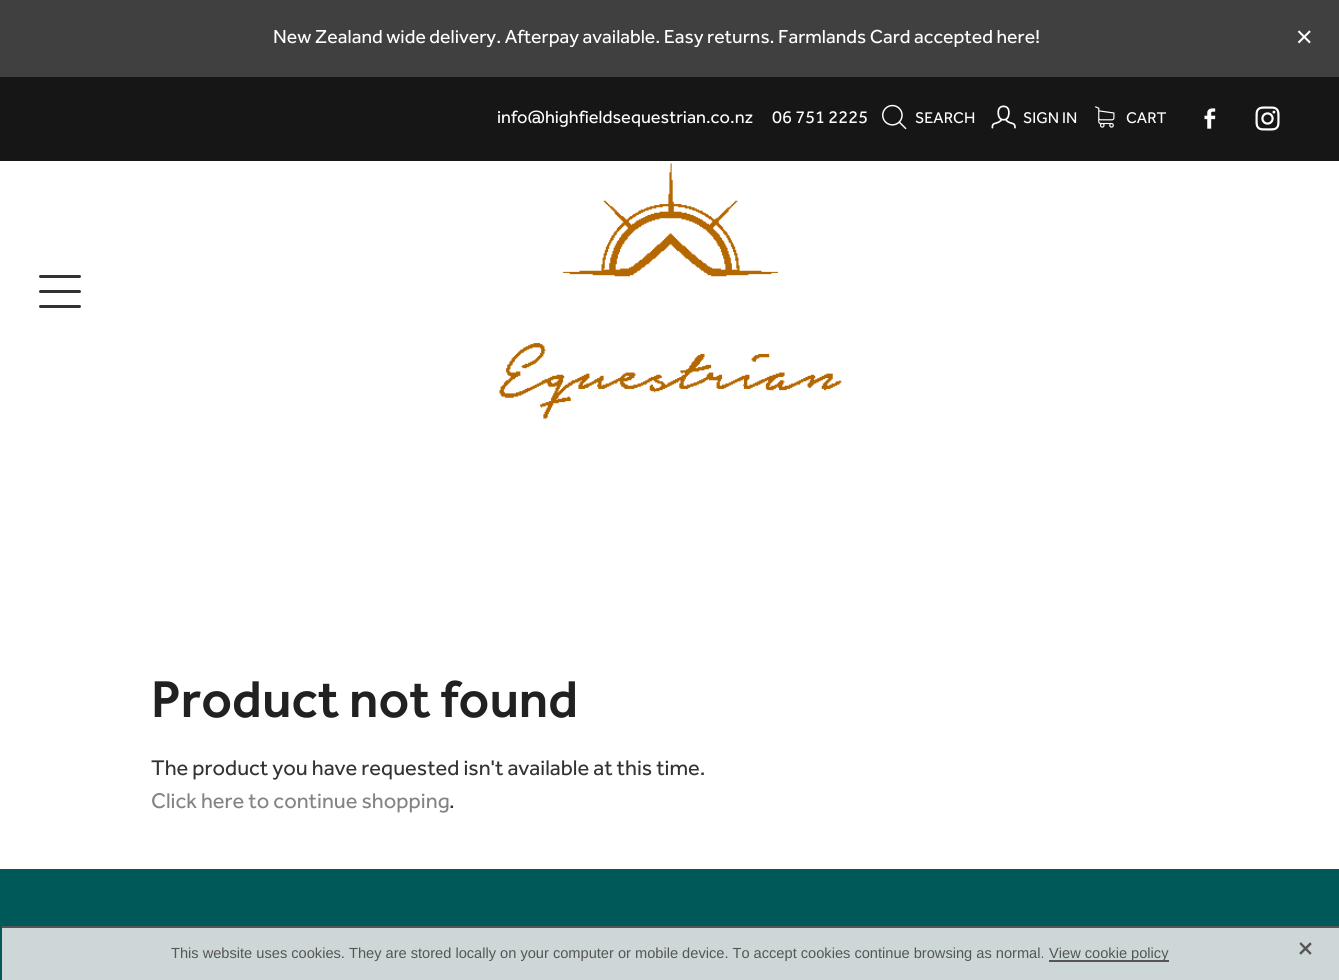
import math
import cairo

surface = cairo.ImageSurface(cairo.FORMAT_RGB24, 1339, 980)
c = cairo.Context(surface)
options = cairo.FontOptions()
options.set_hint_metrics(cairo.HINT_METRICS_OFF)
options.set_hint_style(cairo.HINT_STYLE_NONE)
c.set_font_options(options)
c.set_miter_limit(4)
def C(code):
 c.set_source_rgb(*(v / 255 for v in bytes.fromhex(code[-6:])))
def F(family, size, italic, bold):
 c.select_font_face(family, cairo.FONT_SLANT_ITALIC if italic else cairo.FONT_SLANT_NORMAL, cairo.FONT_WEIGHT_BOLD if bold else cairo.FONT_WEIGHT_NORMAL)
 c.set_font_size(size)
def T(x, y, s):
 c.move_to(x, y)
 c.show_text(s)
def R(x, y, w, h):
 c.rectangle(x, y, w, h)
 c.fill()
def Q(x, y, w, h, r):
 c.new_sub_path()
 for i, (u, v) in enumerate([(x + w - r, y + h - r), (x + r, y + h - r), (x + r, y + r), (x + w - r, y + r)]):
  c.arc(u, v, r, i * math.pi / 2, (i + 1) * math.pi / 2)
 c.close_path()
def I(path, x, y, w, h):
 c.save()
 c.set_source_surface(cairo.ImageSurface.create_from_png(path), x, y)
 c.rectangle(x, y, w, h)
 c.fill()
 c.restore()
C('ffffff')
c.paint()
C('404040')
R(0,0,1339,77)
F('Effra',19.5,0,0)
C('ffffff')
T(273,43,'New Zealand wide delivery. Afterpay available. Easy returns. Farmlands Card accepted here!')
I('1.png',1297,30,14,14)
C('161616')
R(0,77,1339,84)
F('Effra',18.25,0,0)
C('ffffff')
T(497,123,'info@highfieldsequestrian.co.nz')
T(772,123,'06 751 2225')
I('2.png',882,104,25,26)
F('Effra',16,0,0)
T(915,123,'SEARCH')
I('3.png',991,105,25,24)
T(1023,123,'SIGN IN')
I('4.png',1095,106,20,22)
T(1126,123,'CART')
I('5.png',1204,108,12,21)
I('6.png',1255,106,25,25)
C('363131')
Q(39,290,42,3,1.5)
c.fill()
Q(39,275,42,3,1.5)
c.fill()
Q(39,305,42,3,1.5)
c.fill()
I('7.png',499,163,343,256)
F('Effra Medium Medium',53.5,0,0)
C('212121')
T(151,717,'Product not found')
F('Effra',21.95,0,0)
C('333333')
T(151,775,'The product you have requested isn\'t available at this time.')
C('838383')
T(151,808,'Click here to continue shopping')
C('333333')
T(449,808,'.')
C('005959')
R(0,869,1339,111)
C('ced7d7')
R(2,928,1337,52)
C('525656')
R(2,926,1337,2)
F('Liberation Sans',14.62,0,0)
C('555555')
T(171,958,'This website uses cookies. They are stored locally on your computer or mobile device. To accept cookies continue browsing as normal.')
R(1049,960,120,2)
T(1049,958,'View cookie policy')
I('8.png',1299,942,13,13)
surface.write_to_png('o.png')
